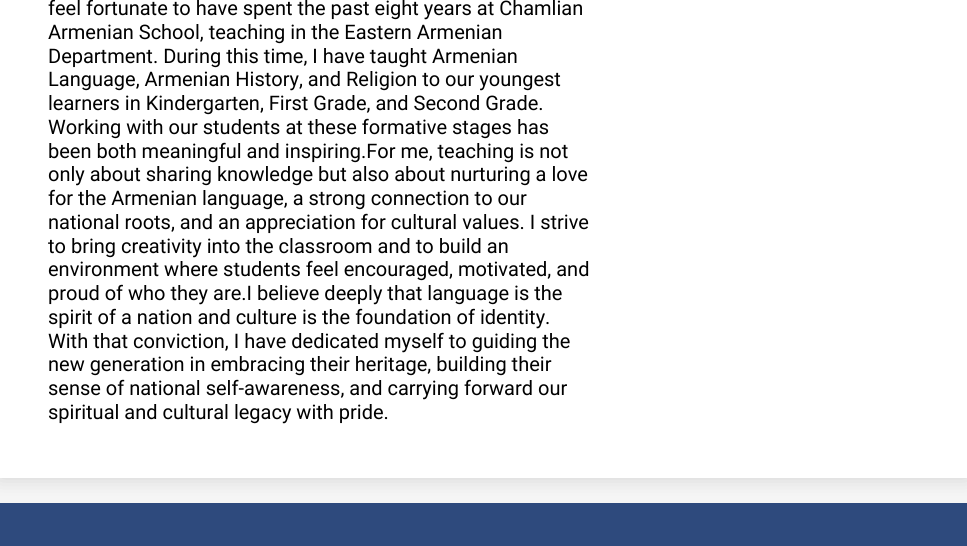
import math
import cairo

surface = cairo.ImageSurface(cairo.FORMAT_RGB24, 967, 546)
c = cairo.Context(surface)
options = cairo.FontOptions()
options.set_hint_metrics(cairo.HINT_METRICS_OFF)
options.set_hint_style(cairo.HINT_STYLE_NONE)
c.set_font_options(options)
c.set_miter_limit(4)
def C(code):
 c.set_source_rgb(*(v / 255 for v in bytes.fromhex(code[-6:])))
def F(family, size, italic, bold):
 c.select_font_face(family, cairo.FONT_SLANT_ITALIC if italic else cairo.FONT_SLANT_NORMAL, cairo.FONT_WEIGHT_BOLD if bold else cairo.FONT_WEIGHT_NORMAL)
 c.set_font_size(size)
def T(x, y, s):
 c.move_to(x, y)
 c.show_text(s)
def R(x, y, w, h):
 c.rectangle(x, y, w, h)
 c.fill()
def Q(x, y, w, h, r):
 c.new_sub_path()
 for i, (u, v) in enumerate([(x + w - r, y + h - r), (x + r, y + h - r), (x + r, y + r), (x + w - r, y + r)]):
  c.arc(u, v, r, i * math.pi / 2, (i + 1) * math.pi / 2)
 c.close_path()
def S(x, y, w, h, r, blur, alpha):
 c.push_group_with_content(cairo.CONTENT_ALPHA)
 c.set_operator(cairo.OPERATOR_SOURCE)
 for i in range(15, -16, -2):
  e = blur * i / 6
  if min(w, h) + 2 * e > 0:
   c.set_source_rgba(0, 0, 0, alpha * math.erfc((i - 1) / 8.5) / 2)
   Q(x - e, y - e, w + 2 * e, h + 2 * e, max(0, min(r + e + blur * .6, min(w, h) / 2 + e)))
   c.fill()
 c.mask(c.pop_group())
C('f5f5f5')
c.paint()
C('2e4a7d')
R(0,503,967,43)
C('000000')
S(0,-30,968,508,0,10,.15)
C('ffffff')
R(0,0,967,478)
F('Roboto',20,0,0)
C('000000')
T(48,15,'feel fortunate to have spent the past eight years at Chamlian')
T(48,39,'Armenian School, teaching in the Eastern Armenian')
T(48,63,'Department. During this time, I have taught Armenian')
T(48,86,'Language, Armenian History, and Religion to our youngest')
T(48,110,'learners in Kindergarten, First Grade, and Second Grade.')
T(48,134,'Working with our students at these formative stages has')
T(48,158,'been both meaningful and inspiring.For me, teaching is not')
T(48,181,'only about sharing knowledge but also about nurturing a love')
T(48,205,'for the Armenian language, a strong connection to our')
T(48,229,'national roots, and an appreciation for cultural values. I strive')
T(48,253,'to bring creativity into the classroom and to build an')
T(48,276,'environment where students feel encouraged, motivated, and')
T(48,300,'proud of who they are.I believe deeply that language is the')
T(48,324,'spirit of a nation and culture is the foundation of identity.')
T(48,348,'With that conviction, I have dedicated myself to guiding the')
T(48,371,'new generation in embracing their heritage, building their')
T(48,395,'sense of national self-awareness, and carrying forward our')
T(48,419,'spiritual and cultural legacy with pride.')
surface.write_to_png('o.png')
